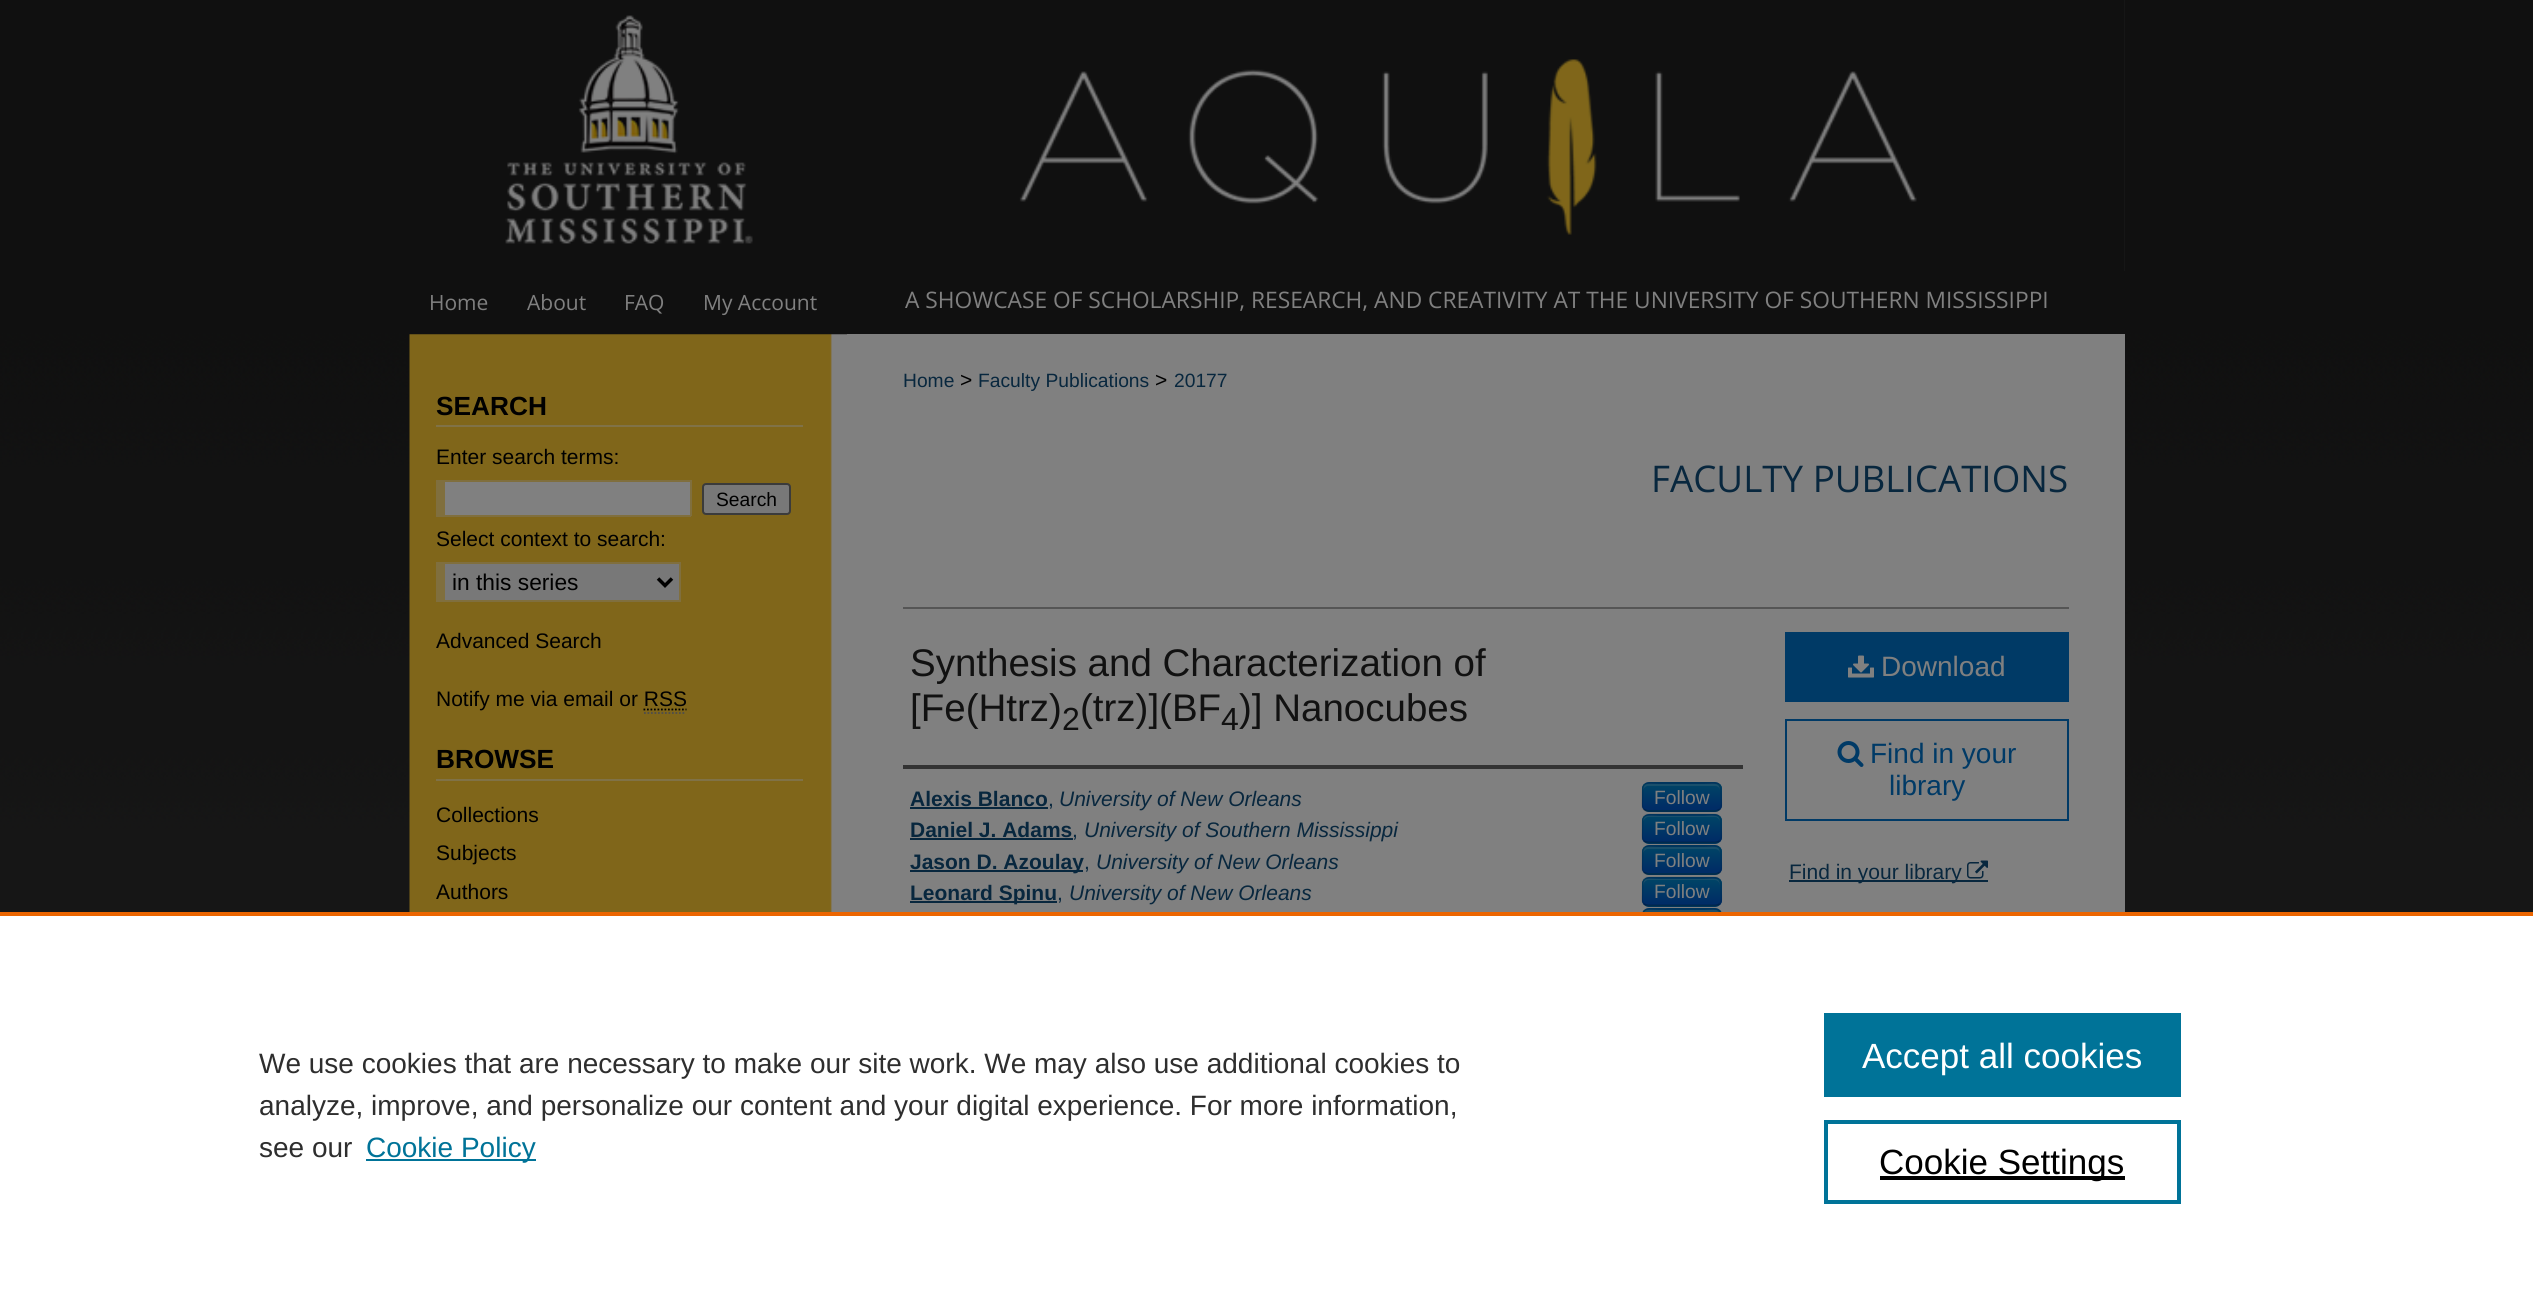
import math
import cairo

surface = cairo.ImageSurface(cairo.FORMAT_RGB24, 2533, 1296)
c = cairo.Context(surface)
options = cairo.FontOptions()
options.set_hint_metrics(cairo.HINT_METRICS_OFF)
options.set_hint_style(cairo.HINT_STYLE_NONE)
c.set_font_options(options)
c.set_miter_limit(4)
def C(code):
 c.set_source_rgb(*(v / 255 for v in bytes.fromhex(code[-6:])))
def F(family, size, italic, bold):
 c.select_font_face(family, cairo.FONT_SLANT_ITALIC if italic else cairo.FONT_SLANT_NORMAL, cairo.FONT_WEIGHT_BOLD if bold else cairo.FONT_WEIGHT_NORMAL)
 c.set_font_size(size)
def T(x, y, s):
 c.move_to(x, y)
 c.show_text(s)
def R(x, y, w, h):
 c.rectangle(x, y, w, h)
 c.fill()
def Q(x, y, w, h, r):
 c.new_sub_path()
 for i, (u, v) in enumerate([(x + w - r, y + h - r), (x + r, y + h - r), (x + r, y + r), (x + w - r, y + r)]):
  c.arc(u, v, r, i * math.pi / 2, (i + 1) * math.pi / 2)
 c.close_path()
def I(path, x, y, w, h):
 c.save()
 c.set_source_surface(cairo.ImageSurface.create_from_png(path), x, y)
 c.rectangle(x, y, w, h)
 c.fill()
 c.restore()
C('ffffff')
c.paint()
I('1.png',0,0,2533,912)
C('1c1c1c')
R(2124,0,1,271)
I('2.png',410,0,1715,271)
I('3.png',505,15,248,229)
F('Open Sans',21,0,0)
C('808080')
T(429,310,'Home')
T(527,310,'About')
T(624,310,'FAQ')
T(703,310,'My Account')
F('Open Sans',22.75,0,0)
T(905,308,'A SHOWCASE OF SCHOLARSHIP, RESEARCH, AND CREATIVITY AT THE UNIVERSITY OF SOUTHERN MISSISSIPPI')
I('4.png',409,334,438,578)
C('807247')
R(436,425,367,2)
F('Liberation Sans',26.25,0,1)
C('000000')
T(436,415,'SEARCH')
F('Liberation Sans',21,0,0)
T(436,464,'Enter search terms:')
C('808080')
R(445,482,245,33)
C('806f3e')
R(445,480,246,2)
R(690,480,2,36)
R(436,515,255,2)
R(436,480,9,35)
C('787878')
Q(703,484,87,30,3)
c.fill_preserve()
C('3b3b3b')
c.stroke()
F('Liberation Sans',19.25,0,0)
C('000000')
T(716,506,'Search')
F('Liberation Sans',21,0,0)
T(436,546,'Select context to search:')
C('787878')
R(445,564,234,36)
C('806f3e')
R(445,562,236,2)
R(679,562,2,40)
R(445,600,236,2)
R(436,562,9,40)
c.new_path()
c.move_to(658,578.5)
c.line_to(665,585.5)
c.line_to(672,578.5)
C('000000')
c.set_line_width(3.5)
c.stroke()
F('Liberation Sans',22.75,0,0)
T(452,590,'in this series')
F('Liberation Sans',21,0,0)
T(436,648,'Advanced Search')
T(436,706,'Notify me via email or RSS')
c.new_path()
c.move_to(643.5,709.5)
c.line_to(686.5,709.5)
c.set_line_width(1.8)
c.set_dash([1.75,1.75])
c.stroke()
c.new_path()
c.move_to(644,713)
c.line_to(686,713)
C('4d4d4d')
c.stroke()
C('807247')
R(436,779,367,2)
F('Liberation Sans',26.25,0,1)
C('000000')
T(436,768,'BROWSE')
F('Liberation Sans',21,0,0)
T(436,822,'Collections')
T(436,860,'Subjects')
T(436,899,'Authors')
C('808080')
R(847,334,1278,578)
F('Liberation Sans',19.25,0,0)
C('08273e')
T(903,387,'Home')
F('Liberation Sans',21,0,0)
C('000000')
T(960,387,'>')
F('Liberation Sans',19.25,0,0)
C('08273e')
T(978,387,'Faculty Publications')
F('Liberation Sans',21,0,0)
C('000000')
T(1155,387,'>')
F('Liberation Sans',19.25,0,0)
C('08273e')
T(1174,387,'20177')
F('Open Sans',36.75,0,0)
T(1651,492,'FACULTY PUBLICATIONS')
C('555555')
R(903,607,1166,2)
F('Liberation Sans',38.5,0,0)
C('111111')
T(910,676,'Synthesis and Characterization of')
T(910,721,'[Fe(Htrz)')
F('Liberation Sans',32,0,0)
T(1062,730,'2')
F('Liberation Sans',38.5,0,0)
T(1080,721,'(trz)](BF')
F('Liberation Sans',32,0,0)
T(1221,730,'4')
F('Liberation Sans',38.5,0,0)
T(1239,721,')] Nanocubes')
C('333333')
R(903,765,840,4)
F('Liberation Sans',21,0,1)
C('08273e')
T(910,806,'Alexis Blanco')
R(910,807,138,2)
F('Liberation Sans',21,0,0)
T(1048,806,',')
F('Liberation Sans',21,1,0)
T(1059,806,'University of New Orleans')
C('003a66')
Q(1642,782,80,30,7)
c.fill()
c.save()
Q(1642,782,80,30,7)
c.clip()
gradient = cairo.LinearGradient(1682,784,1682,810)
gradient.add_color_stop_rgba(0,0,0.267,0.4,1)
gradient.add_color_stop_rgba(1,0,0.169,0.4,1)
c.set_source(gradient)
R(1642,784,80,26)
c.restore()
c.set_source_rgba(0.502,0.502,0.502,0.2)
c.new_path()
c.move_to(1648,786)
c.line_to(1715,786)
c.curve_to(1718,786,1720,788,1720,791)
c.curve_to(1720,781,1712,784,1704,784)
c.line_to(1659,784)
c.curve_to(1651,784,1643,781,1643,791)
c.curve_to(1643,788,1646,786,1648,786)
c.close_path()
c.fill()
c.new_path()
c.move_to(1719.5,809.5)
c.curve_to(1718,810.5,1716.5,811,1715,811)
c.line_to(1648.5,811)
c.curve_to(1647,811,1645.5,810.5,1644,809.5)
c.set_source_rgba(0,0,0,0.25)
c.set_dash([])
c.stroke()
c.new_path()
c.move_to(1644,809.5)
c.curve_to(1641,806.5,1642.5,801,1642.5,797)
c.curve_to(1642.5,781.5,1643,783,1659.5,783)
c.line_to(1704,783)
c.curve_to(1720.5,783,1721,781.5,1721,797)
c.curve_to(1721,801,1722.5,806.5,1719.5,809.5)
c.set_source_rgba(0,0,0,0.1)
c.stroke()
F('Liberation Sans',19.25,0,0)
C('808080')
T(1654,804,'Follow')
F('Liberation Sans',21,0,1)
C('08273e')
T(910,837,'Daniel J. Adams')
R(910,838,163,2)
F('Liberation Sans',21,0,0)
T(1072,837,',')
F('Liberation Sans',21,1,0)
T(1084,837,'University of Southern Mississippi')
C('003a66')
Q(1642,814,80,30,7)
c.fill()
c.save()
Q(1642,814,80,30,7)
c.clip()
gradient = cairo.LinearGradient(1682,816,1682,842)
gradient.add_color_stop_rgba(0,0,0.267,0.4,1)
gradient.add_color_stop_rgba(1,0,0.169,0.4,1)
c.set_source(gradient)
R(1642,816,80,26)
c.restore()
c.set_source_rgba(0.502,0.502,0.502,0.2)
c.new_path()
c.move_to(1648,817)
c.line_to(1715,817)
c.curve_to(1718,817,1720,820,1720,822)
c.curve_to(1720,813,1710,816,1704,816)
c.line_to(1659,816)
c.curve_to(1653,816,1643,813,1643,822)
c.curve_to(1643,820,1646,817,1648,817)
c.close_path()
c.fill()
c.new_path()
c.move_to(1719.5,841)
c.curve_to(1718,842,1716.5,842.5,1715,842.5)
c.line_to(1648.5,842.5)
c.curve_to(1647,842.5,1645.5,842,1644,841)
c.set_source_rgba(0,0,0,0.25)
c.stroke()
c.new_path()
c.move_to(1644,841)
c.curve_to(1641,838,1642.5,832.5,1642.5,828.5)
c.curve_to(1642.5,813,1643,814.5,1659.5,814.5)
c.line_to(1704,814.5)
c.curve_to(1720.5,814.5,1721,813,1721,828.5)
c.curve_to(1721,832.5,1722.5,838,1719.5,841)
c.set_source_rgba(0,0,0,0.1)
c.stroke()
F('Liberation Sans',19.25,0,0)
C('808080')
T(1654,835,'Follow')
C('08273e')
R(910,870,173,2)
F('Liberation Sans',21,0,1)
T(910,869,'Jason D. Azoulay')
F('Liberation Sans',21,0,0)
T(1084,869,',')
F('Liberation Sans',21,1,0)
T(1096,869,'University of New Orleans')
C('003a66')
Q(1642,845,80,30,7)
c.fill()
c.save()
Q(1642,845,80,30,7)
c.clip()
gradient = cairo.LinearGradient(1682,847,1682,873)
gradient.add_color_stop_rgba(0,0,0.267,0.4,1)
gradient.add_color_stop_rgba(1,0,0.169,0.4,1)
c.set_source(gradient)
R(1642,847,80,26)
c.restore()
c.set_source_rgba(0.502,0.502,0.502,0.2)
c.new_path()
c.move_to(1648,849)
c.line_to(1715,849)
c.curve_to(1718,849,1720,851,1720,854)
c.curve_to(1720,844,1712,847,1704,847)
c.line_to(1659,847)
c.curve_to(1651,847,1643,844,1643,854)
c.curve_to(1643,851,1646,849,1648,849)
c.close_path()
c.fill()
c.new_path()
c.move_to(1719.5,872.5)
c.curve_to(1718,873.5,1716.5,874,1715,874)
c.line_to(1648.5,874)
c.curve_to(1647,874,1645.5,873.5,1644,872.5)
c.set_source_rgba(0,0,0,0.25)
c.stroke()
c.new_path()
c.move_to(1644,872.5)
c.curve_to(1641,869.5,1642.5,864,1642.5,860)
c.curve_to(1642.5,844.5,1643,846,1659.5,846)
c.line_to(1704,846)
c.curve_to(1720.5,846,1721,844.5,1721,860)
c.curve_to(1721,864,1722.5,869.5,1719.5,872.5)
c.set_source_rgba(0,0,0,0.1)
c.stroke()
F('Liberation Sans',19.25,0,0)
C('808080')
T(1654,867,'Follow')
C('08273e')
R(910,901,147,2)
F('Liberation Sans',21,0,1)
T(910,900,'Leonard Spinu')
F('Liberation Sans',21,0,0)
T(1057,900,',')
F('Liberation Sans',21,1,0)
T(1069,900,'University of New Orleans')
C('003a66')
Q(1642,877,80,30,7)
c.fill()
c.save()
Q(1642,877,80,30,7)
c.clip()
gradient = cairo.LinearGradient(1682,879,1682,905)
gradient.add_color_stop_rgba(0,0,0.267,0.4,1)
gradient.add_color_stop_rgba(1,0,0.169,0.4,1)
c.set_source(gradient)
R(1642,879,80,26)
c.restore()
c.set_source_rgba(0.502,0.502,0.502,0.2)
c.new_path()
c.move_to(1648,880)
c.line_to(1715,880)
c.curve_to(1718,880,1720,883,1720,886)
c.curve_to(1720,876,1712,879,1704,879)
c.line_to(1659,879)
c.curve_to(1651,879,1643,876,1643,886)
c.curve_to(1643,883,1646,880,1648,880)
c.close_path()
c.fill()
c.new_path()
c.move_to(1719.5,904)
c.curve_to(1718,905,1716.5,905.5,1715,905.5)
c.line_to(1648.5,905.5)
c.curve_to(1647,905.5,1645.5,905,1644,904)
c.set_source_rgba(0,0,0,0.25)
c.stroke()
c.new_path()
c.move_to(1644,904)
c.curve_to(1641,901,1642.5,895.5,1642.5,891.5)
c.curve_to(1642.5,876,1643,877.5,1659.5,877.5)
c.line_to(1704,877.5)
c.curve_to(1720.5,877.5,1721,876,1721,891.5)
c.curve_to(1721,895.5,1722.5,901,1719.5,904)
c.set_source_rgba(0,0,0,0.1)
c.stroke()
F('Liberation Sans',19.25,0,0)
C('808080')
T(1654,898,'Follow')
C('003a66')
Q(1642,908,80,30,7)
c.fill()
c.save()
Q(1642,908,80,30,7)
c.clip()
gradient = cairo.LinearGradient(1682,910,1682,936)
gradient.add_color_stop_rgba(0,0,0.267,0.4,1)
gradient.add_color_stop_rgba(1,0,0.169,0.4,1)
c.set_source(gradient)
R(1642,910,80,2)
c.restore()
c.set_source_rgba(0.502,0.502,0.502,0.2)
c.new_path()
c.move_to(1648,912)
c.line_to(1715,912)
c.curve_to(1718,912,1720,914,1720,917)
c.curve_to(1720,907,1712,910,1704,910)
c.line_to(1659,910)
c.curve_to(1651,910,1643,907,1643,917)
c.curve_to(1643,914,1646,912,1648,912)
c.close_path()
c.fill()
c.new_path()
c.move_to(1644,935.5)
c.curve_to(1641,932.5,1642.5,927,1642.5,923)
c.curve_to(1642.5,907.5,1643,909,1659.5,909)
c.line_to(1704,909)
c.curve_to(1720.5,909,1721,907.5,1721,923)
c.curve_to(1721,927,1722.5,932.5,1719.5,935.5)
c.set_source_rgba(0,0,0,0.1)
c.stroke()
C('003a66')
R(1785,632,284,70)
I('5.png',1848,655,26,23)
F('Liberation Sans',28,0,0)
C('808080')
T(1881,676,'Download')
c.rectangle(1786,720,282,100)
C('003a66')
c.set_line_width(2)
c.stroke()
I('6.png',1837,741,27,26)
T(1870,763,'Find in your')
T(1889,795,'library')
C('08273e')
R(1789,880,199,2)
F('Liberation Sans',21,0,0)
T(1789,879,'Find in your library')
I('7.png',1967,860,21,19)
C('ffffff')
R(1641,916,82,22)
C('eb6500')
R(0,912,2533,4)
F('Liberation Sans',28,0,0)
C('2e2e2e')
T(259,1073,'We use cookies that are necessary to make our site work. We may also use additional cookies to')
T(259,1115,'analyze, improve, and personalize our content and your digital experience. For more information,')
T(259,1157,'see our')
C('007398')
R(366,1159,170,2)
T(366,1157,'Cookie Policy')
R(1824,1013,357,84)
F('Liberation Sans',35,0,0)
C('ffffff')
T(1862,1068,'Accept all cookies')
c.rectangle(1826,1122,353,80)
C('007398')
c.set_line_width(4)
c.stroke()
C('000000')
R(1880,1176,245,4)
T(1879,1174,'Cookie Settings')
surface.write_to_png('o.png')
